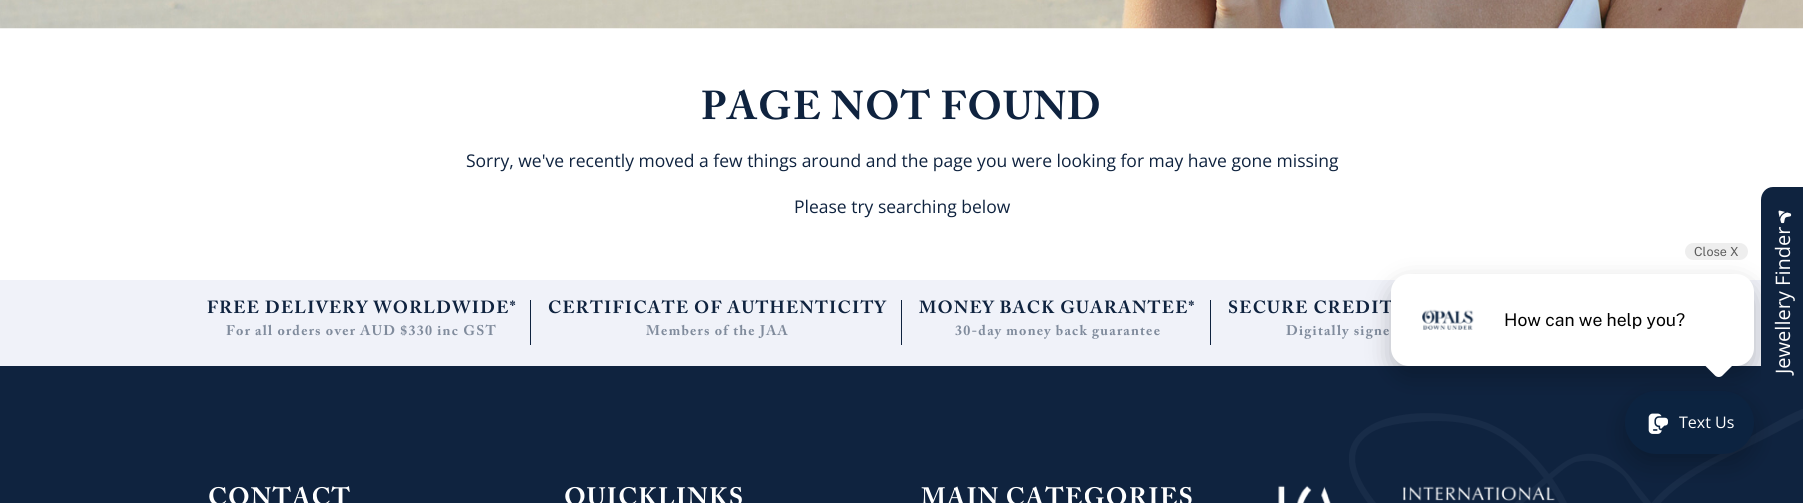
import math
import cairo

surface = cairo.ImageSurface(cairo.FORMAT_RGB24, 1803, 503)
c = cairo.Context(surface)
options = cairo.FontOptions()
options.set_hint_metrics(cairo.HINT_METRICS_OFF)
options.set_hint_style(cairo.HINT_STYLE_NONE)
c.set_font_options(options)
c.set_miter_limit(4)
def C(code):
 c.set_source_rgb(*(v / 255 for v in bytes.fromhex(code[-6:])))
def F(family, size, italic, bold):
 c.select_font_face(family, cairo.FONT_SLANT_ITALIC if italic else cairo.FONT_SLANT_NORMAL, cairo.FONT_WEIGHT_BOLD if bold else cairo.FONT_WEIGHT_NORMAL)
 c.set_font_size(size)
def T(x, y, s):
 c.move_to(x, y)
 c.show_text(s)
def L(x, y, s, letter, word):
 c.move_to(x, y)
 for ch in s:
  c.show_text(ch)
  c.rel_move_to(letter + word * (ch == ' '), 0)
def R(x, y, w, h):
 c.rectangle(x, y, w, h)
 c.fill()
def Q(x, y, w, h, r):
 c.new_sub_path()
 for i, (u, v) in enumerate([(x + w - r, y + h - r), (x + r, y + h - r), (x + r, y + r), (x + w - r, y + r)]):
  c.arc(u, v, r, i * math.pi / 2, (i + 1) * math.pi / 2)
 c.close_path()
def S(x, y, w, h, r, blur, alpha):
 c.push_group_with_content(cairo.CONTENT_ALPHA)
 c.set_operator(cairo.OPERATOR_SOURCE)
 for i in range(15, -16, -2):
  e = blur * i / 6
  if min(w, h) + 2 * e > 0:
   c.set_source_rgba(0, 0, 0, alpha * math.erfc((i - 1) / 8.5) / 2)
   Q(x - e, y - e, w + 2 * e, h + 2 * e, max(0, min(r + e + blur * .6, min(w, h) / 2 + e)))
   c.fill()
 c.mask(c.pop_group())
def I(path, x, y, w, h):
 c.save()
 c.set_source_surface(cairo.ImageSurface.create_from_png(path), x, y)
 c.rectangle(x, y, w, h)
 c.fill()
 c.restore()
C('ffffff')
c.paint()
I('1.png',0,0,1803,29)
F('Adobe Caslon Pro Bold',40,0,1)
C('0f233f')
L(701,119,'PAGE NOT FOUND',1.25,0)
F('Open Sans',17.5,0,0)
T(466,167,'Sorry, we\'ve recently moved a few things around and the page you were looking for may have gone missing')
T(794,213,'Please try searching below')
C('f0f2f9')
R(0,280,1761,86)
C('0f233f')
R(530,300,1,45)
F('Adobe Caslon Pro Bold',17.5,0,1)
L(207,313,'FREE DELIVERY WORLDWIDE*',1.25,0)
F('Adobe Caslon Pro Bold',14,0,1)
C('808b9c')
L(226,335,'For all orders over AUD $330 inc GST',1.25,0)
C('0f233f')
R(901,300,1,45)
F('Adobe Caslon Pro Bold',17.5,0,1)
L(548,313,'CERTIFICATE OF AUTHENTICITY',1.25,0)
F('Adobe Caslon Pro Bold',14,0,1)
C('808b9c')
L(646,335,'Members of the JAA',1.25,0)
C('0f233f')
R(1210,300,1,45)
F('Adobe Caslon Pro Bold',17.5,0,1)
L(919,313,'MONEY BACK GUARANTEE*',1.25,0)
F('Adobe Caslon Pro Bold',14,0,1)
C('808b9c')
L(955,335,'30-day money back guarantee',1.25,0)
F('Adobe Caslon Pro Bold',17.5,0,1)
C('0f233f')
L(1228,313,'SECURE CREDIT',1.25,0)
F('Adobe Caslon Pro Bold',14,0,1)
C('808b9c')
L(1286,335,'Digitally signe',1.25,0)
C('0f233f')
R(0,366,1803,137)
I('5.png',1349,409,454,94)
C('000000')
S(1625,401,129,63,31.5,12.5,.24)
C('0c2340')
Q(1625,391,129,63,31.5)
c.fill()
I('3.png',1648,413,20,21)
C('000000')
S(1391,284,363,92,18,12.5,.24)
C('ffffff')
Q(1391,274,363,92,18)
c.fill()
C('eeeeee')
Q(1685,243,63,17,8.5)
c.fill()
F('Public Sans Thin',12.5,0,0)
C('5d5d5d')
T(1694,256,'Close X')
I('2.png',1422,309,52,21)
F('Public Sans Thin',17.5,0,0)
C('000000')
T(1504,326,'How can we help you?')
C('ffffff')
c.new_path()
c.move_to(1722.5,347)
c.line_to(1733,357.5)
c.curve_to(1735,359.5,1735,363,1733,365)
c.line_to(1722.5,375.5)
c.curve_to(1720.5,377.5,1717,377.5,1715,375.5)
c.line_to(1704.5,365)
c.curve_to(1702.5,363,1702.5,359.5,1704.5,357.5)
c.line_to(1715,347)
c.curve_to(1717,345,1720.5,345,1722.5,347)
c.close_path()
c.fill()
F('Open Sans',16,0,0)
T(1679,428,'Text Us')
C('0f233f')
c.new_path()
c.move_to(1761,385)
c.line_to(1761,200)
c.curve_to(1761,193,1766,187,1773,187)
c.line_to(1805,187)
c.line_to(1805,397)
c.line_to(1773,397)
c.curve_to(1766,397,1761,392,1761,385)
c.close_path()
c.fill()
I('4.png',1778,210,14,14)
F('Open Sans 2',20,0,0)
C('ffffff')
c.save()
c.translate(1790,374)
c.rotate(-90 * math.pi / 180)
T(0,0,'Jewellery Finder')
c.restore()
F('Adobe Caslon Pro Bold',25,0,1)
L(208,505,'CONTACT',1.25,0)
L(564,505,'QUICKLINKS',1.25,0)
L(921,505,'MAIN CATEGORIES',1.25,0)
I('6.png',1278,485,277,18)
surface.write_to_png('o.png')
